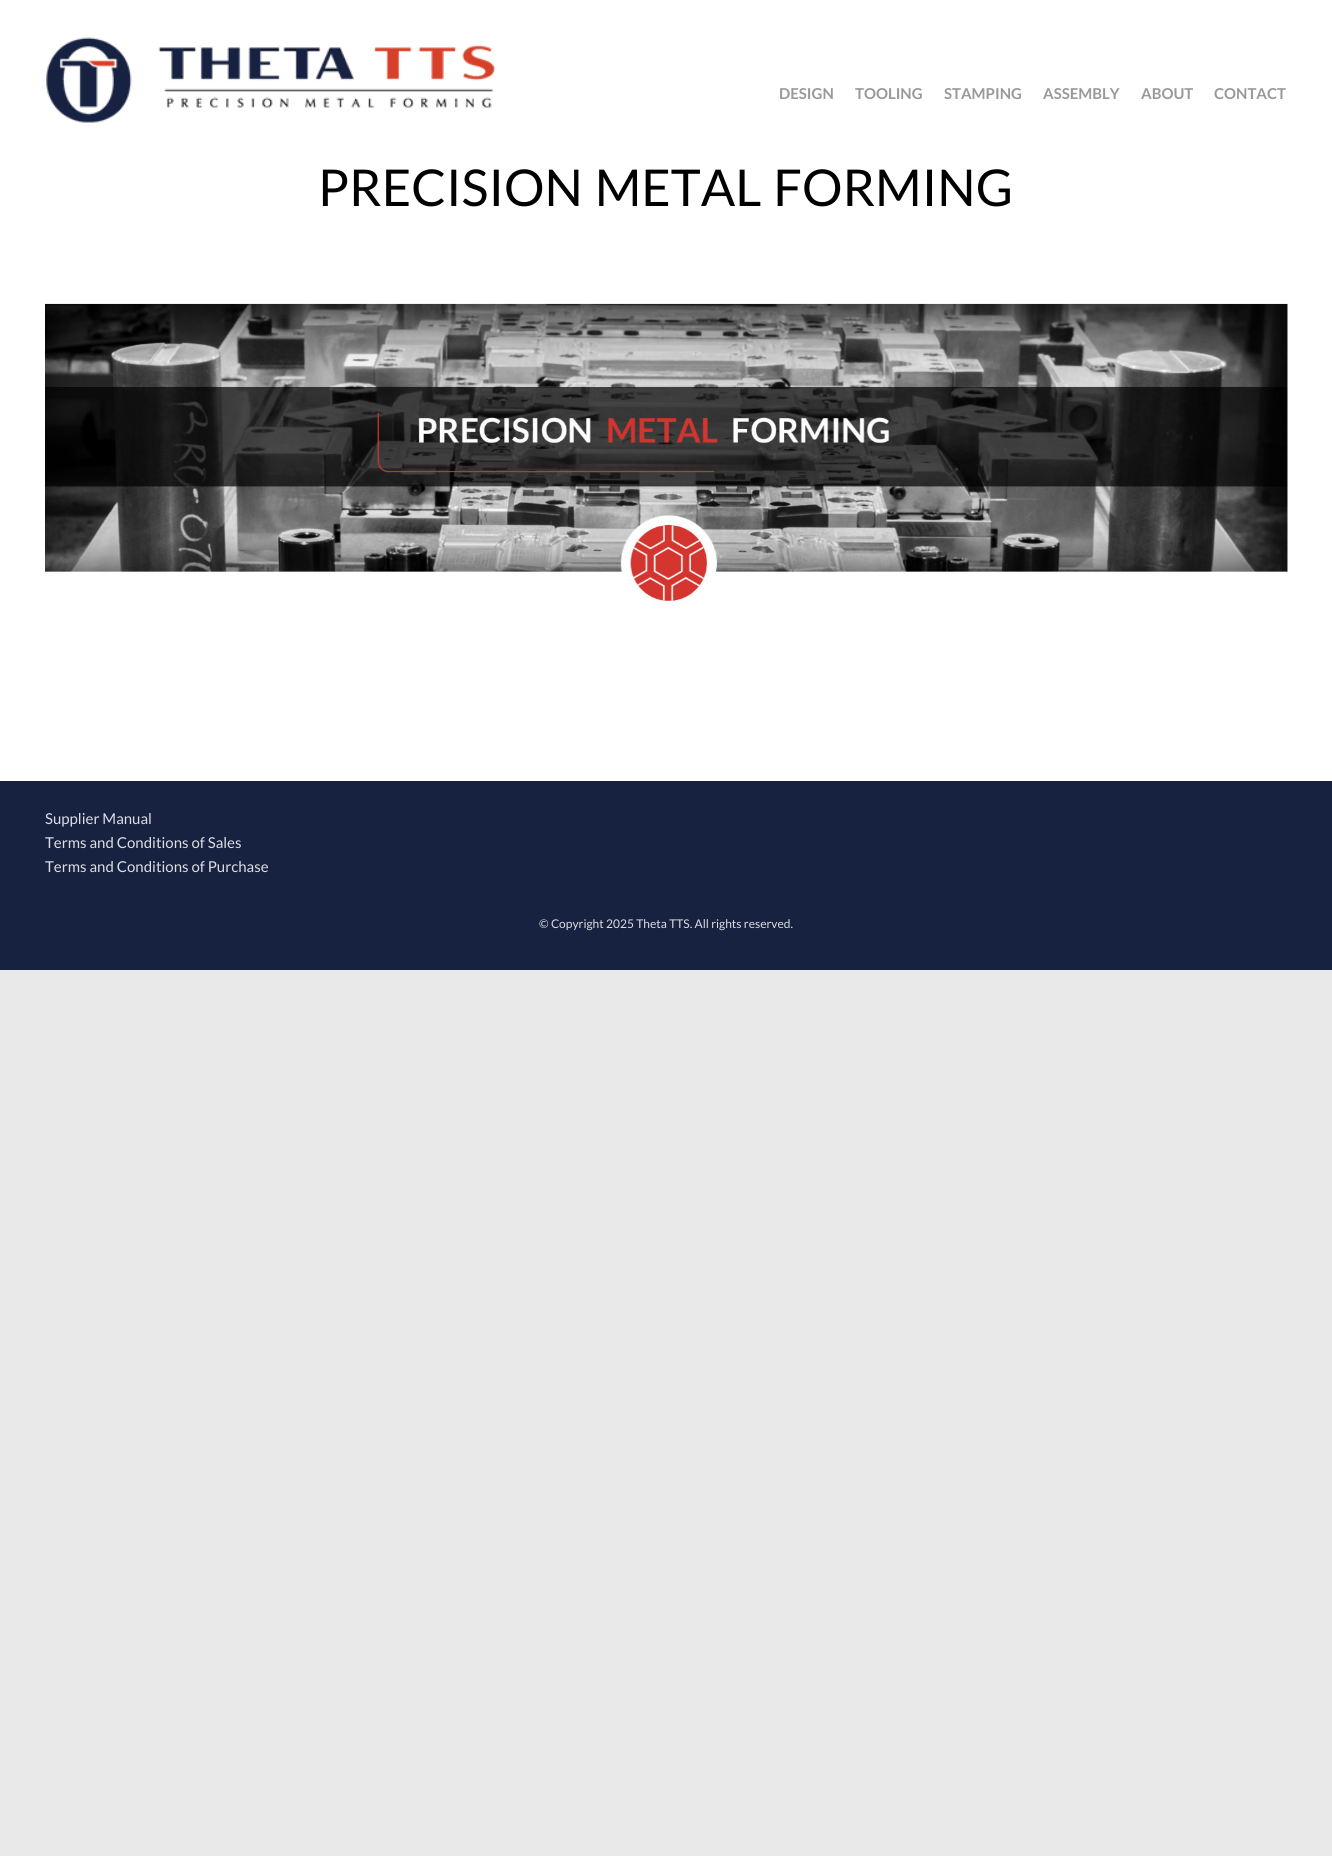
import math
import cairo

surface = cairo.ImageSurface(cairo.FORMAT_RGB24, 1332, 1856)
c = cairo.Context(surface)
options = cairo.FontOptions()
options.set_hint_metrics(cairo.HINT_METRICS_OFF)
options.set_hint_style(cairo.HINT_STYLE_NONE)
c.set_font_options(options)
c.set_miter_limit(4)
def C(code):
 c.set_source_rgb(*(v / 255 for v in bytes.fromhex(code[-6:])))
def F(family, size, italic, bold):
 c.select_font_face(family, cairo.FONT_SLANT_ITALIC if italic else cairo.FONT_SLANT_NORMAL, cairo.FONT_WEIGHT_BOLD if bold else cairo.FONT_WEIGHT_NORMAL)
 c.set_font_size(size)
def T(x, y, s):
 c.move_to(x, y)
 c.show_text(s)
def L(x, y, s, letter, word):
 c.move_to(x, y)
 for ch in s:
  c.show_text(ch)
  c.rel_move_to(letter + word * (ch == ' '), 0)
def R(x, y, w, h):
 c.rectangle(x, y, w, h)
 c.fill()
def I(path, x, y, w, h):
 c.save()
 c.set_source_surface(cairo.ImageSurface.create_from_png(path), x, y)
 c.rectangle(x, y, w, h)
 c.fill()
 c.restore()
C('e9e9e9')
c.paint()
C('ffffff')
R(0,0,1332,781)
I('1.png',46,37,449,86)
F('Lato',15,0,1)
C('999999')
T(779,99,'DESIGN')
T(855,99,'TOOLING')
T(944,99,'STAMPING')
T(1043,99,'ASSEMBLY')
T(1141,99,'ABOUT')
T(1214,99,'CONTACT')
F('Lato',50.75,0,0)
C('000000')
L(318,206,'PRECISION METAL FORMING',0,2)
I('2.png',45,303,1243,298)
C('172140')
R(0,781,1332,189)
F('Lato',15,0,0)
C('dddee3')
T(45,824,'Supplier Manual')
T(45,848,'Terms and Conditions of Sales')
T(45,872,'Terms and Conditions of Purchase')
F('Lato',12,0,0)
T(539,928,'© Copyright 2025 Theta TTS. All rights reserved.')
surface.write_to_png('o.png')
